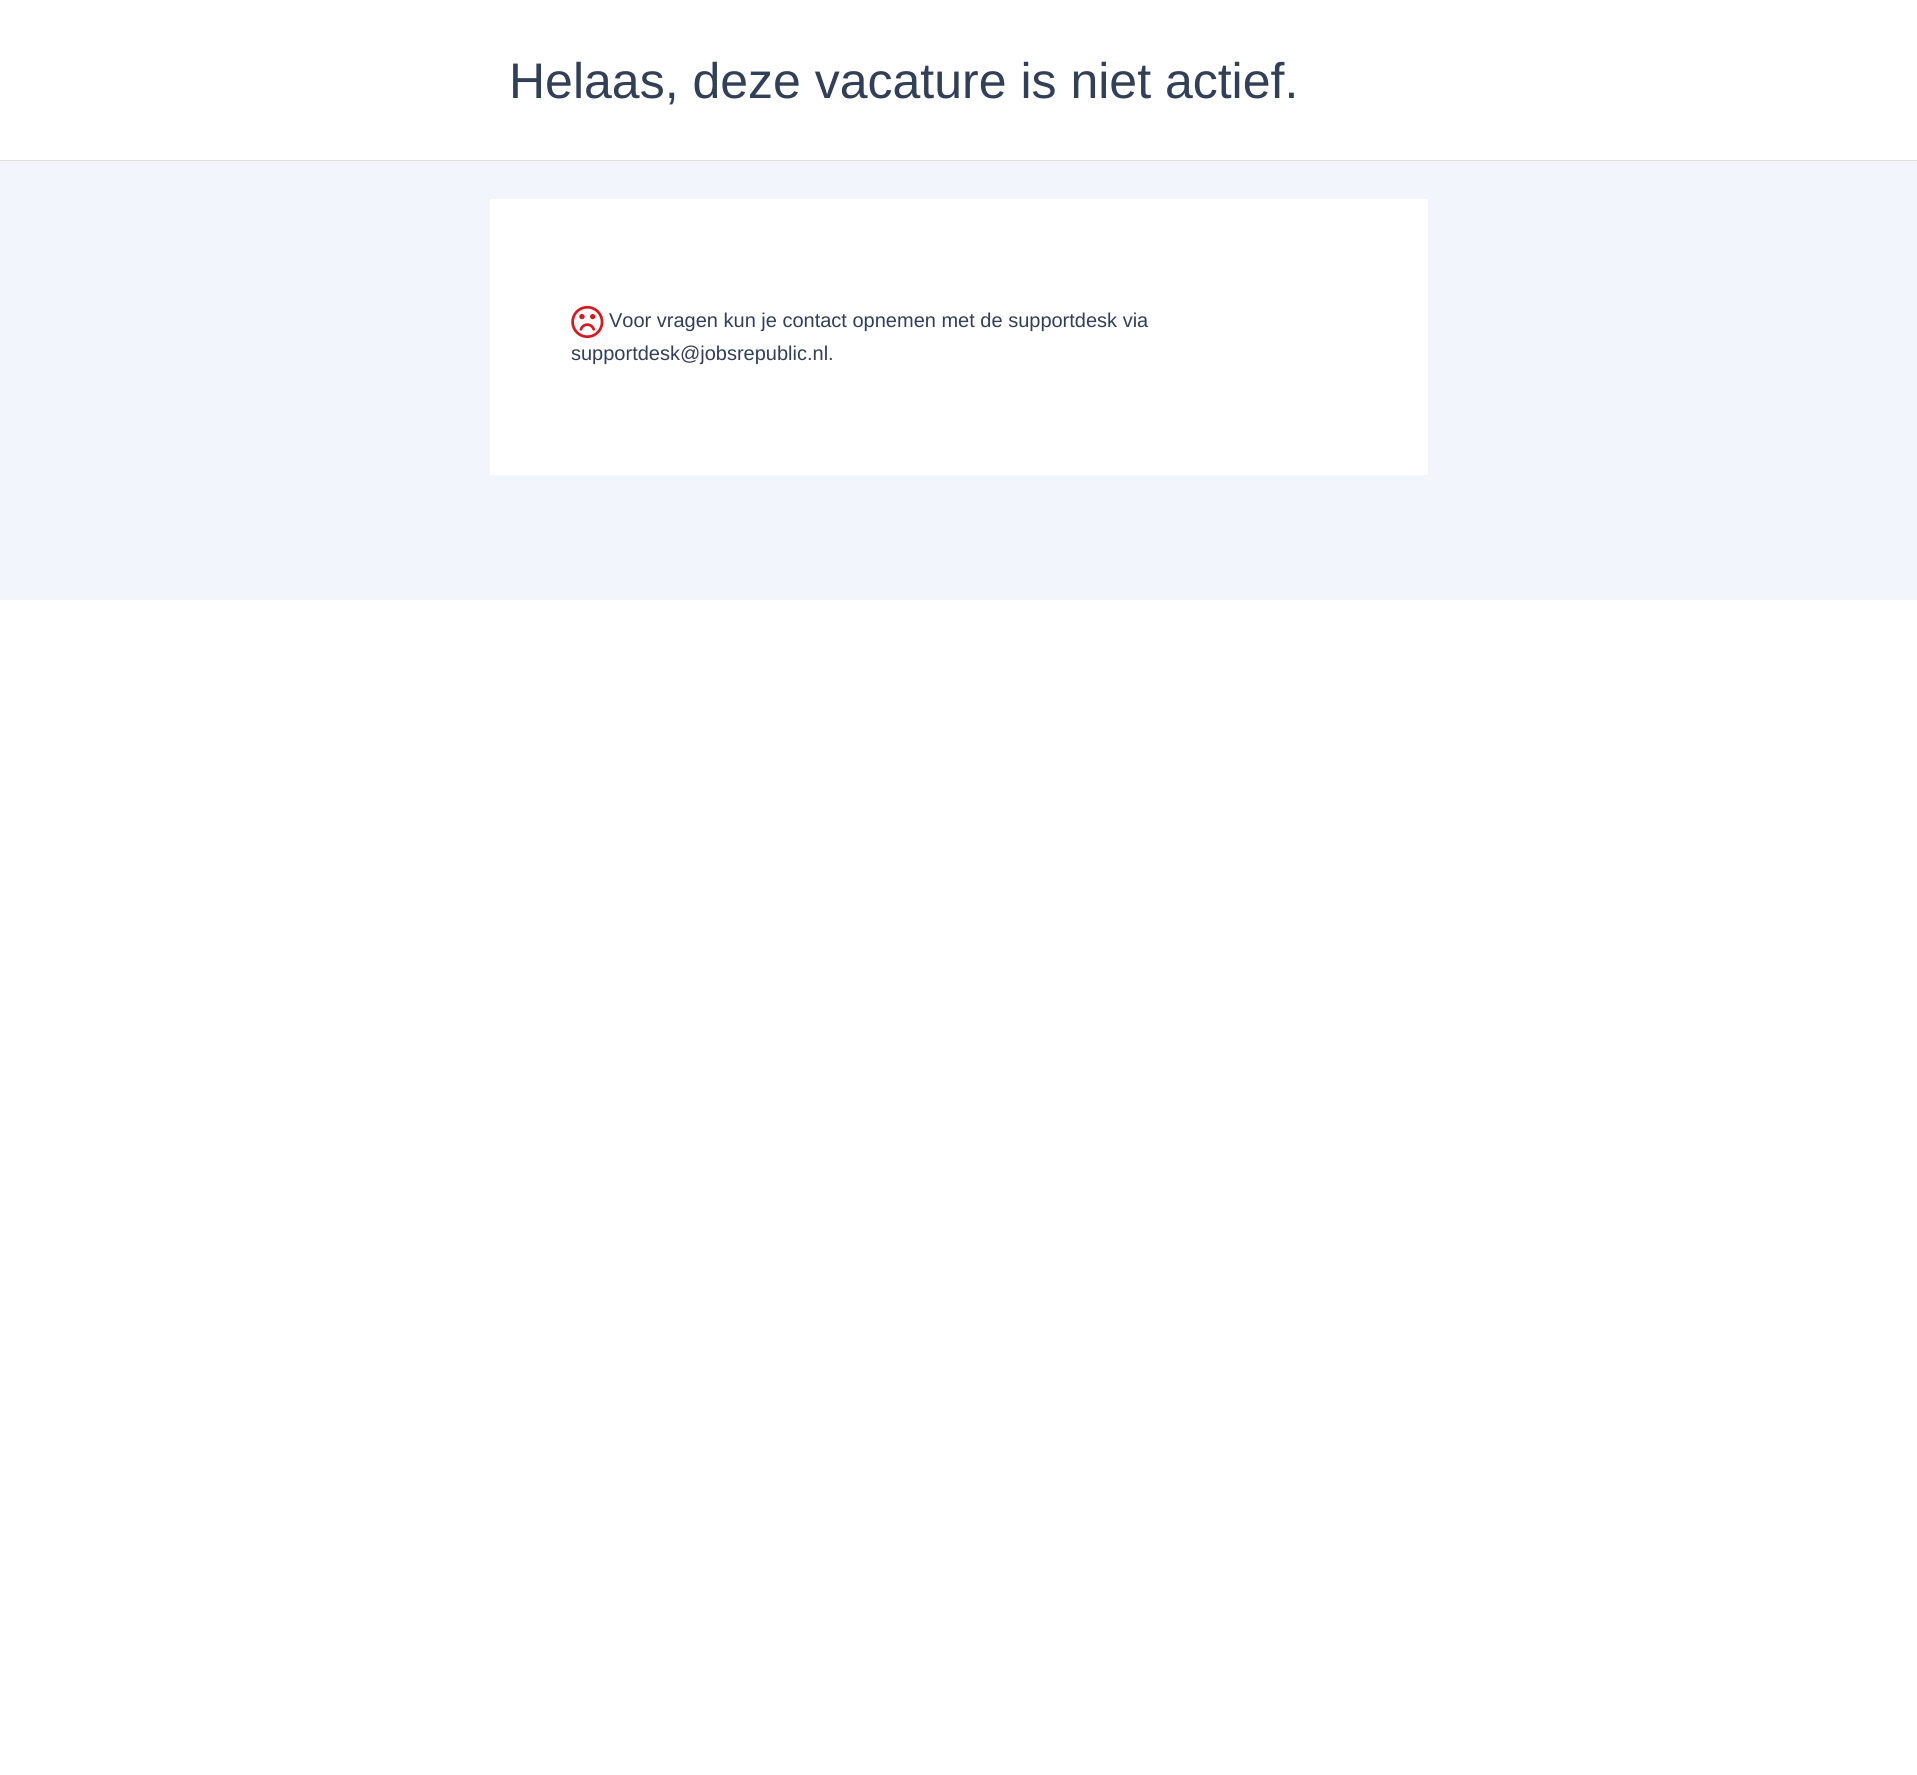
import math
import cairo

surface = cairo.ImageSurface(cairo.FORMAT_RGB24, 1917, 1775)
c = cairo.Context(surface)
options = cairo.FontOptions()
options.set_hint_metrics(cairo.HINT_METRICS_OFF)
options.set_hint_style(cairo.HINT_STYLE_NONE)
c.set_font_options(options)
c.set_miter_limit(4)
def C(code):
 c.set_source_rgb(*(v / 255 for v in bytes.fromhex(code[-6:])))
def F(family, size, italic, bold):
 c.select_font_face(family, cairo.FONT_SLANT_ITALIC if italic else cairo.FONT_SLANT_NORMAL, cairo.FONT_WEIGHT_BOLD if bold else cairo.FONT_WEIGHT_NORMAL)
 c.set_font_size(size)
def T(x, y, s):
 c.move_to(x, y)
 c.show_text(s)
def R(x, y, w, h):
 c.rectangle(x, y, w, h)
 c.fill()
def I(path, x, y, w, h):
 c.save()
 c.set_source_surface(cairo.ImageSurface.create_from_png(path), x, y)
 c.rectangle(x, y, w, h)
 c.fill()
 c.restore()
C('ffffff')
c.paint()
C('dedede')
R(0,160,1917,1)
F('Liberation Sans',50,0,0)
C('313f57')
T(509,98,'Helaas, deze vacature is niet actief.')
C('f2f6fc')
R(0,161,1917,439)
C('ffffff')
R(490,199,938,276)
I('1.png',571,305,33,33)
F('Liberation Sans',20,0,0)
C('313f57')
T(609,327,'Voor vragen kun je contact opnemen met de supportdesk via')
T(571,360,'supportdesk@jobsrepublic.nl.')
surface.write_to_png('o.png')
